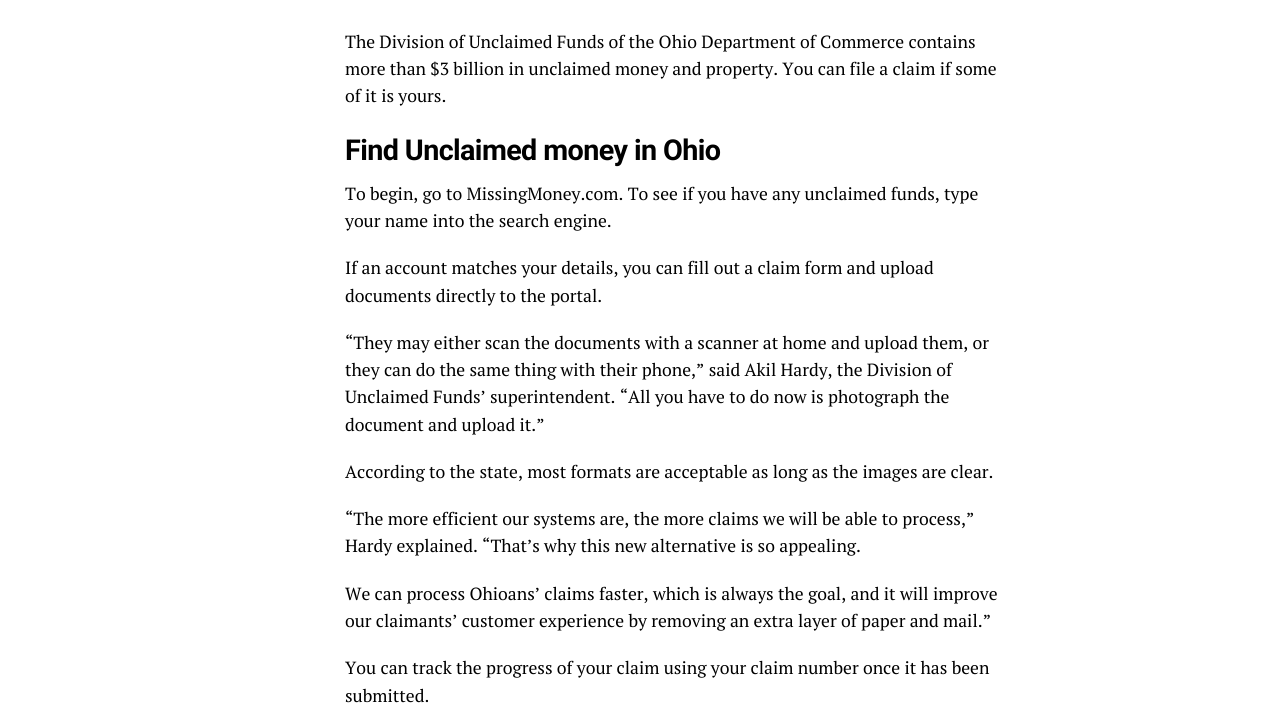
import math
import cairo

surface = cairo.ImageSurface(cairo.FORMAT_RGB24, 1280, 727)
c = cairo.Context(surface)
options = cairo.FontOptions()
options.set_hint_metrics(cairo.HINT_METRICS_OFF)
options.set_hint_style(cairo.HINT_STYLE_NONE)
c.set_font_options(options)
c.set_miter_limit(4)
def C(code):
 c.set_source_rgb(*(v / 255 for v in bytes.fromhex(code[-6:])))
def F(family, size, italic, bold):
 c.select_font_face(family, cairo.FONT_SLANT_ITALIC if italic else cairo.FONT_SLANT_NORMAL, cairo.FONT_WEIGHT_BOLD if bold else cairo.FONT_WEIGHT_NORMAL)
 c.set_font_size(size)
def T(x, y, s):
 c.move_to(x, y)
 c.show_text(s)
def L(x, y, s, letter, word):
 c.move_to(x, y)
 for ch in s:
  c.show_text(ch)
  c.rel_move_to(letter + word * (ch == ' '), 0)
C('ffffff')
c.paint()
F('PT Serif',17.6,0,0)
C('000000')
T(345,48,'The Division of Unclaimed Funds of the Ohio Department of Commerce contains')
T(345,75,'more than $3 billion in unclaimed money and property. You can file a claim if some')
T(345,102,'of it is yours.')
F('Roboto',28.75,0,1)
L(345,160,'Find Unclaimed money in Ohio',-.6,0)
F('PT Serif',17.6,0,0)
T(345,200,'To begin, go to MissingMoney.com. To see if you have any unclaimed funds, type')
T(345,227,'your name into the search engine.')
T(345,274,'If an account matches your details, you can fill out a claim form and upload')
T(345,302,'documents directly to the portal.')
T(345,349,'“They may either scan the documents with a scanner at home and upload them, or')
T(345,376,'they can do the same thing with their phone,” said Akil Hardy, the Division of')
T(345,403,'Unclaimed Funds’ superintendent. “All you have to do now is photograph the')
T(345,431,'document and upload it.”')
T(345,478,'According to the state, most formats are acceptable as long as the images are clear.')
T(345,525,'“The more efficient our systems are, the more claims we will be able to process,”')
T(345,552,'Hardy explained. “That’s why this new alternative is so appealing.')
T(345,600,'We can process Ohioans’ claims faster, which is always the goal, and it will improve')
T(345,627,'our claimants’ customer experience by removing an extra layer of paper and mail.”')
T(345,674,'You can track the progress of your claim using your claim number once it has been')
T(345,702,'submitted.')
surface.write_to_png('o.png')
